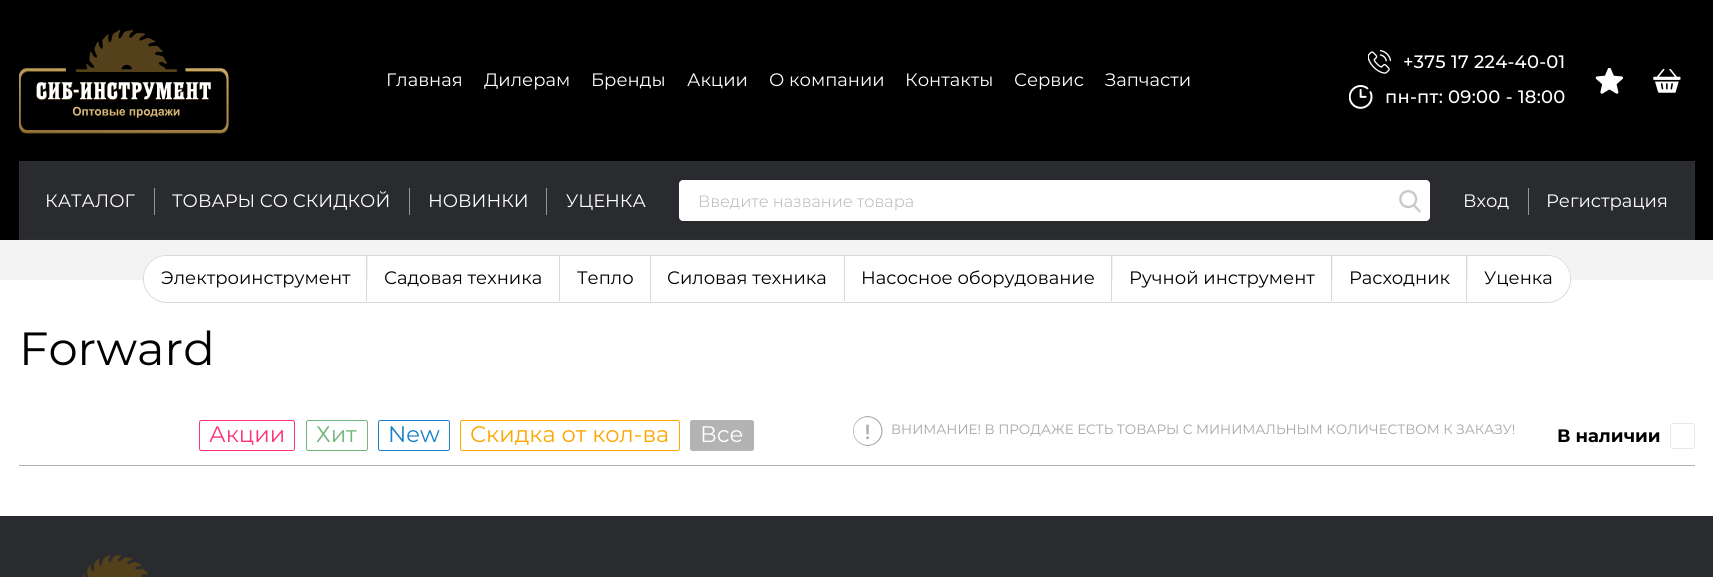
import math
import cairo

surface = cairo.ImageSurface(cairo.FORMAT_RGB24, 1713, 577)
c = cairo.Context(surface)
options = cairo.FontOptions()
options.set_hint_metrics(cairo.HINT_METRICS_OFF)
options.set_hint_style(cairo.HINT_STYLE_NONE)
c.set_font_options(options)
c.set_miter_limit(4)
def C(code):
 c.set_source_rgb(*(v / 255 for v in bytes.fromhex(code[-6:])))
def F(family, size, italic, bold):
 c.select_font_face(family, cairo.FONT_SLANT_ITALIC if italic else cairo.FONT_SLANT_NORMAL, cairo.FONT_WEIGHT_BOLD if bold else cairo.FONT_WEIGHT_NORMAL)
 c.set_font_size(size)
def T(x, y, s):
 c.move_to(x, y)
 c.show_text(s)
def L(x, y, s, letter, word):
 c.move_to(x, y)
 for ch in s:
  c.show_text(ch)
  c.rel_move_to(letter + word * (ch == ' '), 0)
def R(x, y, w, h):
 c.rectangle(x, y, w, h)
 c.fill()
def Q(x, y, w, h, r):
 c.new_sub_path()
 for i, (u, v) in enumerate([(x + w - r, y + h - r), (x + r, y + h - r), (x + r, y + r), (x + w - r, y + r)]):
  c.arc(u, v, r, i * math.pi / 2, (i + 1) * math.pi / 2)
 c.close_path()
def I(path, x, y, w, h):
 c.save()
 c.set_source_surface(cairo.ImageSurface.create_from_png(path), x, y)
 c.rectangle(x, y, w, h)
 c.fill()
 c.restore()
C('f3f3f3')
c.paint()
C('000000')
R(0,0,1713,240)
I('1.png',19,29,210,105)
F('Montserrat',18,0,0)
C('ffffff')
T(386,86,'Главная')
T(484,86,'Дилерам')
T(591,86,'Бренды')
T(687,86,'Акции')
T(769,86,'О компании')
T(905,86,'Контакты')
T(1014,86,'Сервис')
T(1105,86,'Запчасти')
I('2.png',1368,50,23,24)
F('Montserrat Medium',18,0,0)
L(1403,68,'+375 17 224-40-01',.25,0)
I('3.png',1349,85,24,24)
L(1385,103,'пн-пт: 09:00 - 18:00',.25,0)
I('4.png',1595,68,28,26)
I('5.png',1653,69,28,24)
C('292b2e')
c.rectangle(19.5,161.5,1675,78)
c.fill_preserve()
C('2d2f32')
c.set_line_width(1)
c.stroke()
C('949597')
R(154,188,1,27)
F('Montserrat',18,0,0)
C('ffffff')
T(45,207,'КАТАЛОГ')
C('949597')
R(409,188,1,27)
C('ffffff')
T(172,207,'ТОВАРЫ СО СКИДКОЙ')
C('949597')
R(546,188,1,27)
C('ffffff')
T(428,207,'НОВИНКИ')
T(566,207,'УЦЕНКА')
Q(679.5,180.5,750,40,3.5)
c.fill_preserve()
c.stroke()
F('Montserrat Light',16.25,0,0)
C('b2b2b2')
T(698,207,'Введите название товара')
I('6.png',1399,190,22,23)
C('949597')
R(1528,188,1,27)
F('Montserrat',18,0,0)
C('ffffff')
T(1463,207,'Вход')
T(1546,207,'Регистрация')
R(0,280,1713,236)
Q(143.5,255.5,1427,47,23.5)
C('d9d9d9')
c.stroke()
C('ffffff')
c.new_path()
c.move_to(166.5,256)
c.line_to(366,256)
c.line_to(366,301)
c.line_to(166.5,301)
c.curve_to(154,301,144,291,144,278.5)
c.curve_to(144,266,154,256,166.5,256)
c.close_path()
c.fill()
C('000000')
T(161,284,'Электроинструмент')
C('d9d9d9')
R(366,256,1,45)
C('ffffff')
R(368,256,191,24)
C('000000')
T(384,284,'Садовая техника')
C('d9d9d9')
R(559,256,1,45)
C('ffffff')
R(560,256,90,24)
C('000000')
T(577,284,'Тепло')
C('d9d9d9')
R(650,256,1,45)
C('ffffff')
R(651,256,193,24)
C('000000')
T(667,284,'Силовая техника')
C('d9d9d9')
R(844,256,1,45)
C('ffffff')
R(845,256,266,24)
C('000000')
T(861,284,'Насосное оборудование')
C('d9d9d9')
R(1111,256,1,45)
C('ffffff')
R(1113,256,218,24)
C('000000')
T(1129,284,'Ручной инструмент')
C('d9d9d9')
R(1331,256,1,45)
C('ffffff')
R(1333,256,133,24)
C('000000')
T(1349,284,'Расходник')
C('d9d9d9')
R(1466,256,1,45)
C('ffffff')
c.new_path()
c.move_to(1468,256)
c.line_to(1547.5,256)
c.curve_to(1560,256,1570,266,1570,278.5)
c.curve_to(1570,291,1560,301,1547.5,301)
c.line_to(1468,301)
c.close_path()
c.fill()
C('000000')
T(1484,284,'Уценка')
F('Montserrat',46.5,0,0)
T(19,365,'Forward')
C('b3b3b3')
R(19,465,1676,1)
Q(199.5,420.5,95,30,2)
C('ff3476')
c.stroke()
F('Montserrat',22.5,0,0)
T(209,442,'Акции')
Q(306.5,420.5,61,30,2)
C('71b67b')
c.stroke()
T(316,442,'Хит')
Q(378.5,420.5,71,30,2)
C('1b82c7')
c.stroke()
T(388,442,'New')
Q(460.5,420.5,219,30,2)
C('ffa500')
c.stroke()
T(470,442,'Скидка от кол-ва')
C('b3b3b3')
Q(690.5,420.5,63,30,2)
c.fill_preserve()
c.stroke()
C('ffffff')
T(700,442,'Все')
I('7.png',853,416,30,30)
F('Montserrat',13.5,0,0)
C('a5a5a5')
T(891,434,'ВНИМАНИЕ! В ПРОДАЖЕ ЕСТЬ ТОВАРЫ С МИНИМАЛЬНЫМ КОЛИЧЕСТВОМ К ЗАКАЗУ!')
F('Montserrat',18,0,1)
C('000000')
T(1557,442,'В наличии')
Q(1670.5,423.5,24,25,2)
C('e9e9e9')
c.stroke()
C('292b2f')
R(0,516,1713,61)
I('8.png',82,554,67,23)
surface.write_to_png('o.png')
